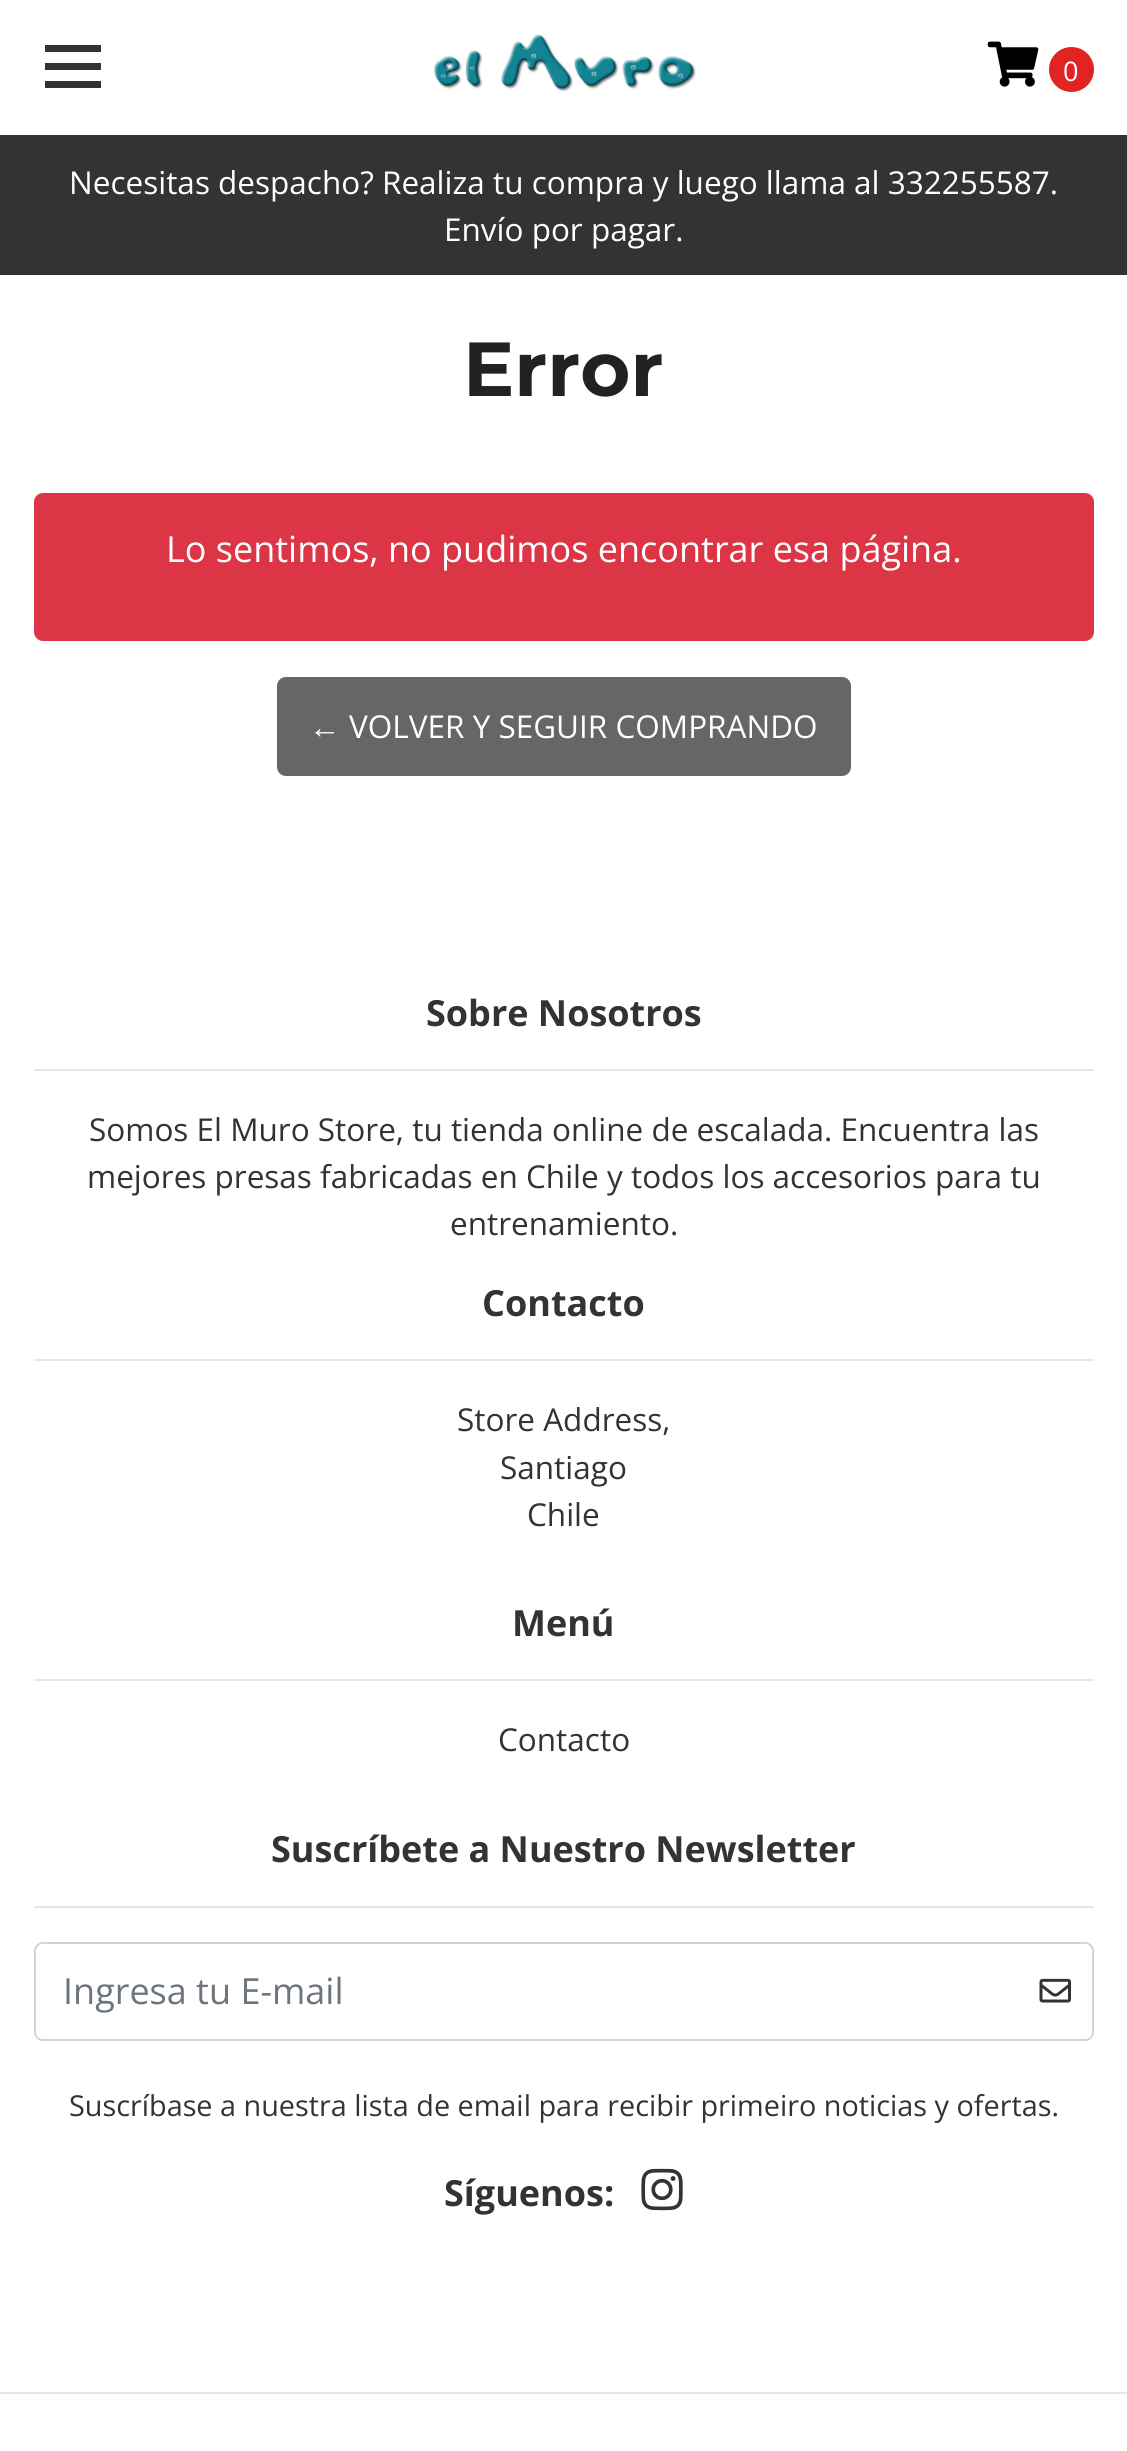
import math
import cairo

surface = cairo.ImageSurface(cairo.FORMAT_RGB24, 1127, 2451)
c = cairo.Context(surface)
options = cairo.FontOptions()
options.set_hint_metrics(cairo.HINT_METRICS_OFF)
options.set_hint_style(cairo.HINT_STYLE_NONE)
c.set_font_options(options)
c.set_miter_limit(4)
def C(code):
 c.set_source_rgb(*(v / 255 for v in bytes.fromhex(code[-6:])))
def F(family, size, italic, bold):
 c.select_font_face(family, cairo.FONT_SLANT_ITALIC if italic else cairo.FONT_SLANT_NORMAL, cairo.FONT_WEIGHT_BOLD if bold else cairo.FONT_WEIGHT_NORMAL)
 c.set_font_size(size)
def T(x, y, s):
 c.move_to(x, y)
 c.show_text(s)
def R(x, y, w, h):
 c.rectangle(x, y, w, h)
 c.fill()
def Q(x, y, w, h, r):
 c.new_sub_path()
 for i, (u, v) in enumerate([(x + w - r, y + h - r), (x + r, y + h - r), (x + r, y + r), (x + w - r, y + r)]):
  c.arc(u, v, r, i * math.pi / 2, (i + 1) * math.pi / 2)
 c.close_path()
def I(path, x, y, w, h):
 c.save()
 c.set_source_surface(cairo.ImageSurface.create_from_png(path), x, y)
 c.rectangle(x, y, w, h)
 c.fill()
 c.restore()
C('ffffff')
c.paint()
C('333333')
R(45,45,56,7)
R(45,63,56,7)
R(45,81,56,7)
I('1.png',433,34,263,58)
I('2.png',987,41,52,46)
C('e22323')
c.arc(1071.5,69.5,22.5,0,2 * math.pi)
c.fill()
F('Open Sans',27,0,0)
C('ffffff')
T(1063,81,'0')
C('333333')
R(0,135,1127,140)
F('Open Sans',31.5,0,0)
C('ffffff')
T(69,194,'Necesitas despacho? Realiza tu compra y luego llama al 332255587.')
T(444,241,'Envío por pagar.')
F('Montserrat',76.5,0,1)
C('222222')
T(463,396,'Error')
C('dc3545')
Q(34,493,1060,148,9)
c.fill()
F('Open Sans',36,0,0)
C('ffffff')
T(166,562,'Lo sentimos, no pudimos encontrar esa página.')
C('666666')
Q(277,677,574,99,9)
c.fill()
F('Liberation Serif',31.5,0,0)
C('ffffff')
T(309,738,'←')
F('Open Sans',31.5,0,0)
T(349,738,'VOLVER Y SEGUIR COMPRANDO')
C('e6e6e6')
R(34,1069,1060,2)
F('Open Sans',36,0,1)
C('333333')
T(426,1026,'Sobre Nosotros')
F('Open Sans',31.5,0,0)
T(89,1141,'Somos El Muro Store, tu tienda online de escalada. Encuentra las')
T(87,1188,'mejores presas fabricadas en Chile y todos los accesorios para tu')
T(450,1235,'entrenamiento.')
C('e6e6e6')
R(34,1359,1060,2)
F('Open Sans',36,0,1)
C('333333')
T(482,1316,'Contacto')
F('Open Sans',31.5,0,0)
T(457,1431,'Store Address,')
T(500,1479,'Santiago')
T(527,1526,'Chile')
C('e6e6e6')
R(34,1679,1060,2)
F('Open Sans',36,0,1)
C('333333')
T(512,1636,'Menú')
F('Open Sans',31.5,0,0)
T(498,1751,'Contacto')
C('e6e6e6')
R(34,1906,1060,2)
F('Open Sans',36,0,1)
C('333333')
T(271,1862,'Suscríbete a Nuestro Newsletter')
Q(35,1943,1058,97,8)
C('ced4da')
c.stroke()
F('Open Sans',36,0,0)
C('6c757d')
T(63,2004,'Ingresa tu E-mail')
I('3.png',1039,1978,32,25)
F('Open Sans',28.8,0,0)
C('333333')
T(69,2116,'Suscríbase a nuestra lista de email para recibir primeiro noticias y ofertas.')
F('Open Sans',36,0,1)
T(444,2206,'Síguenos:')
I('4.png',641,2168,42,43)
C('e6e6e6')
R(0,2392,1127,2)
surface.write_to_png('o.png')
